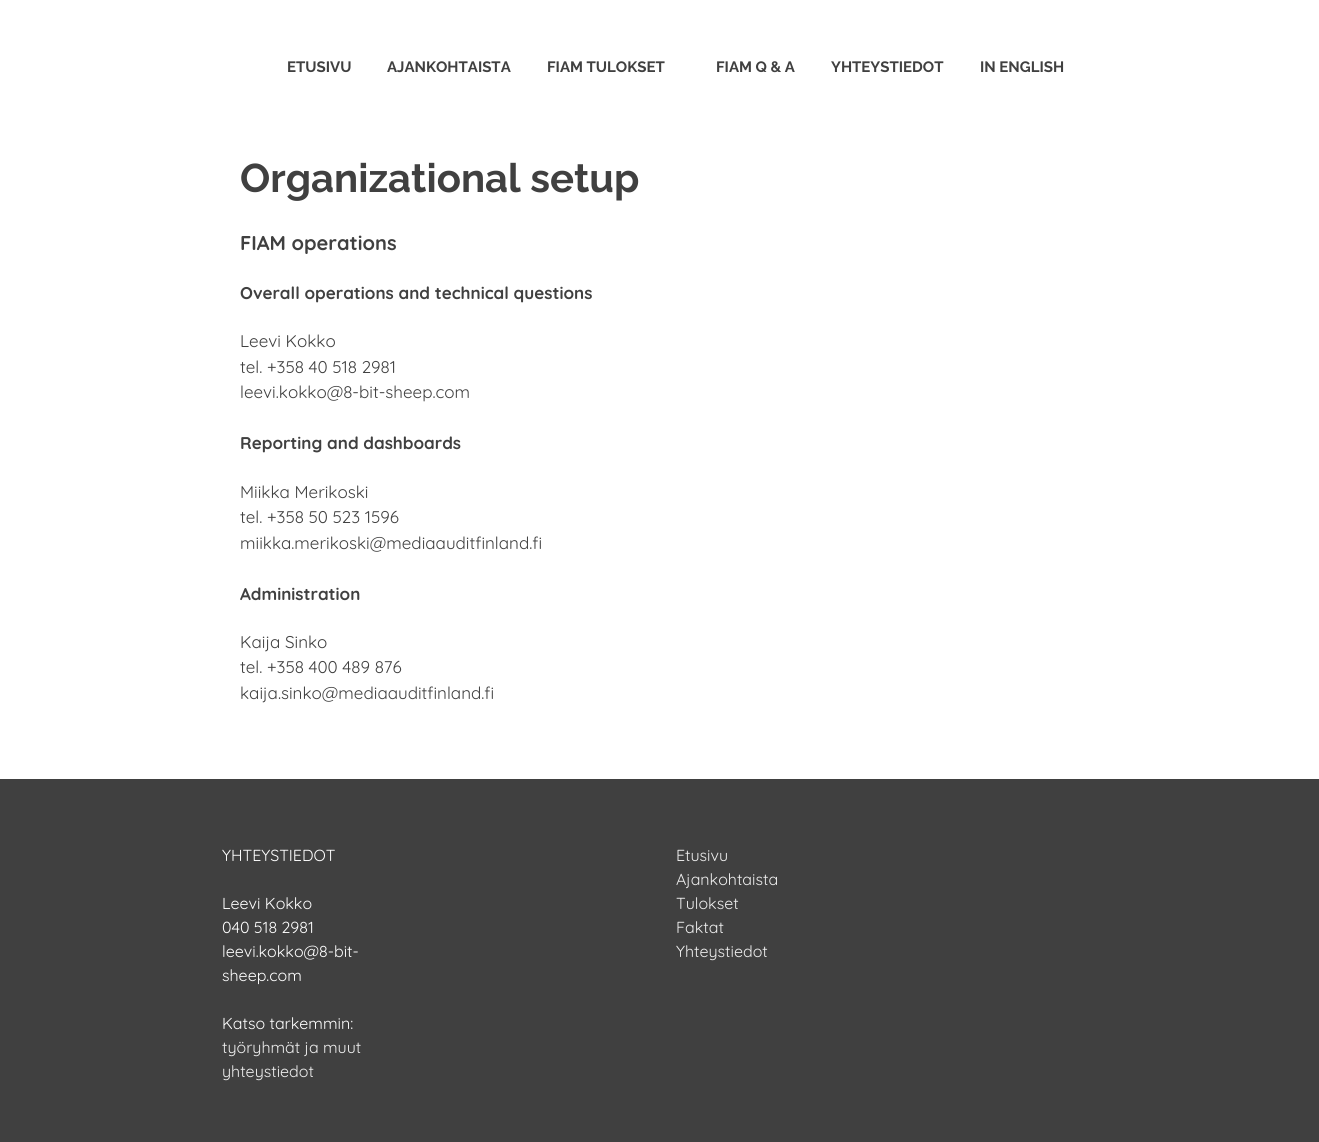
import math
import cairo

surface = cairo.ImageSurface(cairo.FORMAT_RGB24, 1319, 1142)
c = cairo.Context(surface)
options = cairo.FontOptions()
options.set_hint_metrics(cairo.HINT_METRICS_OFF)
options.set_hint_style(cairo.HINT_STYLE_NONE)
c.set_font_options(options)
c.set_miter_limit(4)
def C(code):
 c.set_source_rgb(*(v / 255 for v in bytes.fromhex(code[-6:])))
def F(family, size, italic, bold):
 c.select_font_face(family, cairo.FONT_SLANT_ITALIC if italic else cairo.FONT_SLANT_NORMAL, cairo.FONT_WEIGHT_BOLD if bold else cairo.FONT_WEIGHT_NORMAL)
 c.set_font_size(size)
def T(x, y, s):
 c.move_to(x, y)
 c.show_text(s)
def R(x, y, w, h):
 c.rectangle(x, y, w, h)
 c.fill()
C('ffffff')
c.paint()
F('Raleway',15,0,1)
C('404040')
T(287,72,'ETUSIVU')
T(387,72,'AJANKOHTAISTA')
T(547,72,'FIAM TULOKSET')
T(716,72,'FIAM Q & A')
T(831,72,'YHTEYSTIEDOT')
T(980,72,'IN ENGLISH')
F('Raleway',40,0,1)
T(240,192,'Organizational setup')
F('Quicksand',20,0,1)
T(240,250,'FIAM operations')
F('Quicksand',17,0,1)
T(240,299,'Overall operations and technical questions')
F('Quicksand',17,0,0)
T(240,347,'Leevi Kokko')
T(240,373,'tel. +358 40 518 2981')
T(240,398,'leevi.kokko@8-bit-sheep.com')
F('Quicksand',17,0,1)
T(240,449,'Reporting and dashboards')
F('Quicksand',17,0,0)
T(240,498,'Miikka Merikoski')
T(240,523,'tel. +358 50 523 1596')
T(240,549,'miikka.merikoski@mediaauditfinland.fi')
F('Quicksand',17,0,1)
T(240,600,'Administration')
F('Quicksand',17,0,0)
T(240,648,'Kaija Sinko')
T(240,673,'tel. +358 400 489 876')
T(240,699,'kaija.sinko@mediaauditfinland.fi')
R(0,779,1319,363)
F('Quicksand',16,0,0)
C('ffffff')
T(222,861,'YHTEYSTIEDOT')
T(222,909,'Leevi Kokko')
T(222,933,'040 518 2981')
T(222,957,'leevi.kokko@8-bit-')
T(222,981,'sheep.com')
T(222,1029,'Katso tarkemmin:')
C('eeeeee')
T(222,1053,'työryhmät ja muut')
T(222,1077,'yhteystiedot')
T(676,861,'Etusivu')
T(676,885,'Ajankohtaista')
T(676,909,'Tulokset')
T(676,933,'Faktat')
T(676,957,'Yhteystiedot')
surface.write_to_png('o.png')
